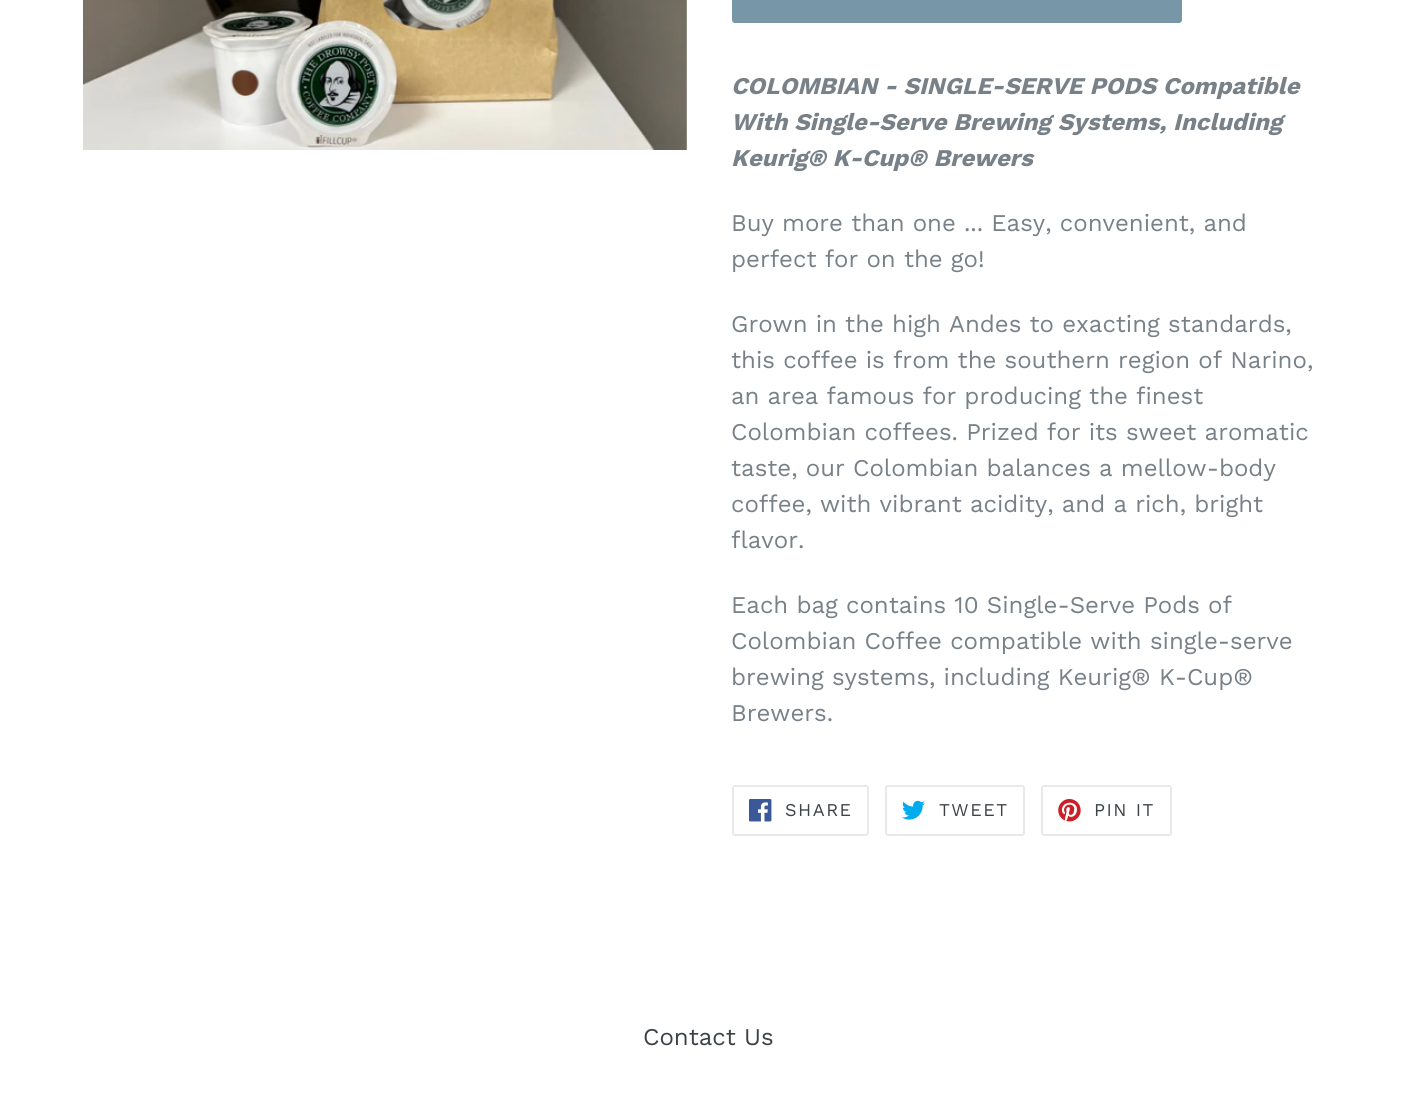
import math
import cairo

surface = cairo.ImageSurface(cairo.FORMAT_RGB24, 1417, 1106)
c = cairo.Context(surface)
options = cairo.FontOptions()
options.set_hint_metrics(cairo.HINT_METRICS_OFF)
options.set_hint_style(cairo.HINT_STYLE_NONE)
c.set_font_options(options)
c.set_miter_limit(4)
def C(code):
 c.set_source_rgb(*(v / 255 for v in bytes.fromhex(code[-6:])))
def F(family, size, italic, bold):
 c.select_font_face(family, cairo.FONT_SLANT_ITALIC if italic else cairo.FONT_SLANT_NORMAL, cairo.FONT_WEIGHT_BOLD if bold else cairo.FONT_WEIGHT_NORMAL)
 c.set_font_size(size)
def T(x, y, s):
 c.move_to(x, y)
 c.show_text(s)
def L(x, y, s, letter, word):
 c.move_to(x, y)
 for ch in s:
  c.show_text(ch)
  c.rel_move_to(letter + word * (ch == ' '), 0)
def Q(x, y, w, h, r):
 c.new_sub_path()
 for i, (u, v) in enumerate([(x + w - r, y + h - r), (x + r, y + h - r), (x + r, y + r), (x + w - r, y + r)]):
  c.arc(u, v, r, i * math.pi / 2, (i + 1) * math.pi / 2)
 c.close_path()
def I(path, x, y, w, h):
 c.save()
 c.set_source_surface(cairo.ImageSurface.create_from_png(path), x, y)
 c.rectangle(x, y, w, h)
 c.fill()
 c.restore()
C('ffffff')
c.paint()
I('1.png',83,0,604,150)
C('7796a8')
Q(732,-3,450,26,3)
c.fill()
F('Work Sans',24,1,1)
C('788188')
T(731,94,'COLOMBIAN - SINGLE-SERVE PODS Compatible')
T(731,130,'With Single-Serve Brewing Systems, Including')
T(731,166,'Keurig® K-Cup® Brewers')
F('Work Sans',24,0,0)
T(731,231,'Buy more than one ... Easy, convenient, and')
T(731,267,'perfect for on the go!')
T(731,332,'Grown in the high Andes to exacting standards,')
T(731,368,'this coffee is from the southern region of Narino,')
T(731,404,'an area famous for producing the finest')
T(731,440,'Colombian coffees. Prized for its sweet aromatic')
T(731,476,'taste, our Colombian balances a mellow-body')
T(731,512,'coffee, with vibrant acidity, and a rich, bright')
T(731,548,'flavor.')
T(731,613,'Each bag contains 10 Single-Serve Pods of')
T(731,649,'Colombian Coffee compatible with single-serve')
T(731,685,'brewing systems, including Keurig® K-Cup®')
T(731,721,'Brewers.')
Q(733,786,135,49,2)
C('e8e9eb')
c.stroke()
I('2.png',749,799,23,23)
F('Work Sans',18,0,0)
C('3d4246')
L(785,816,'SHARE',1.5,0)
Q(886,786,138,49,2)
C('e8e9eb')
c.stroke()
I('3.png',902,800,23,20)
C('3d4246')
L(939,816,'TWEET',1.5,0)
Q(1042,786,129,49,2)
C('e8e9eb')
c.stroke()
I('4.png',1058,799,23,23)
C('3d4246')
L(1094,816,'PIN IT',1.5,0)
F('Work Sans',24,0,0)
T(643,1045,'Contact Us')
surface.write_to_png('o.png')
